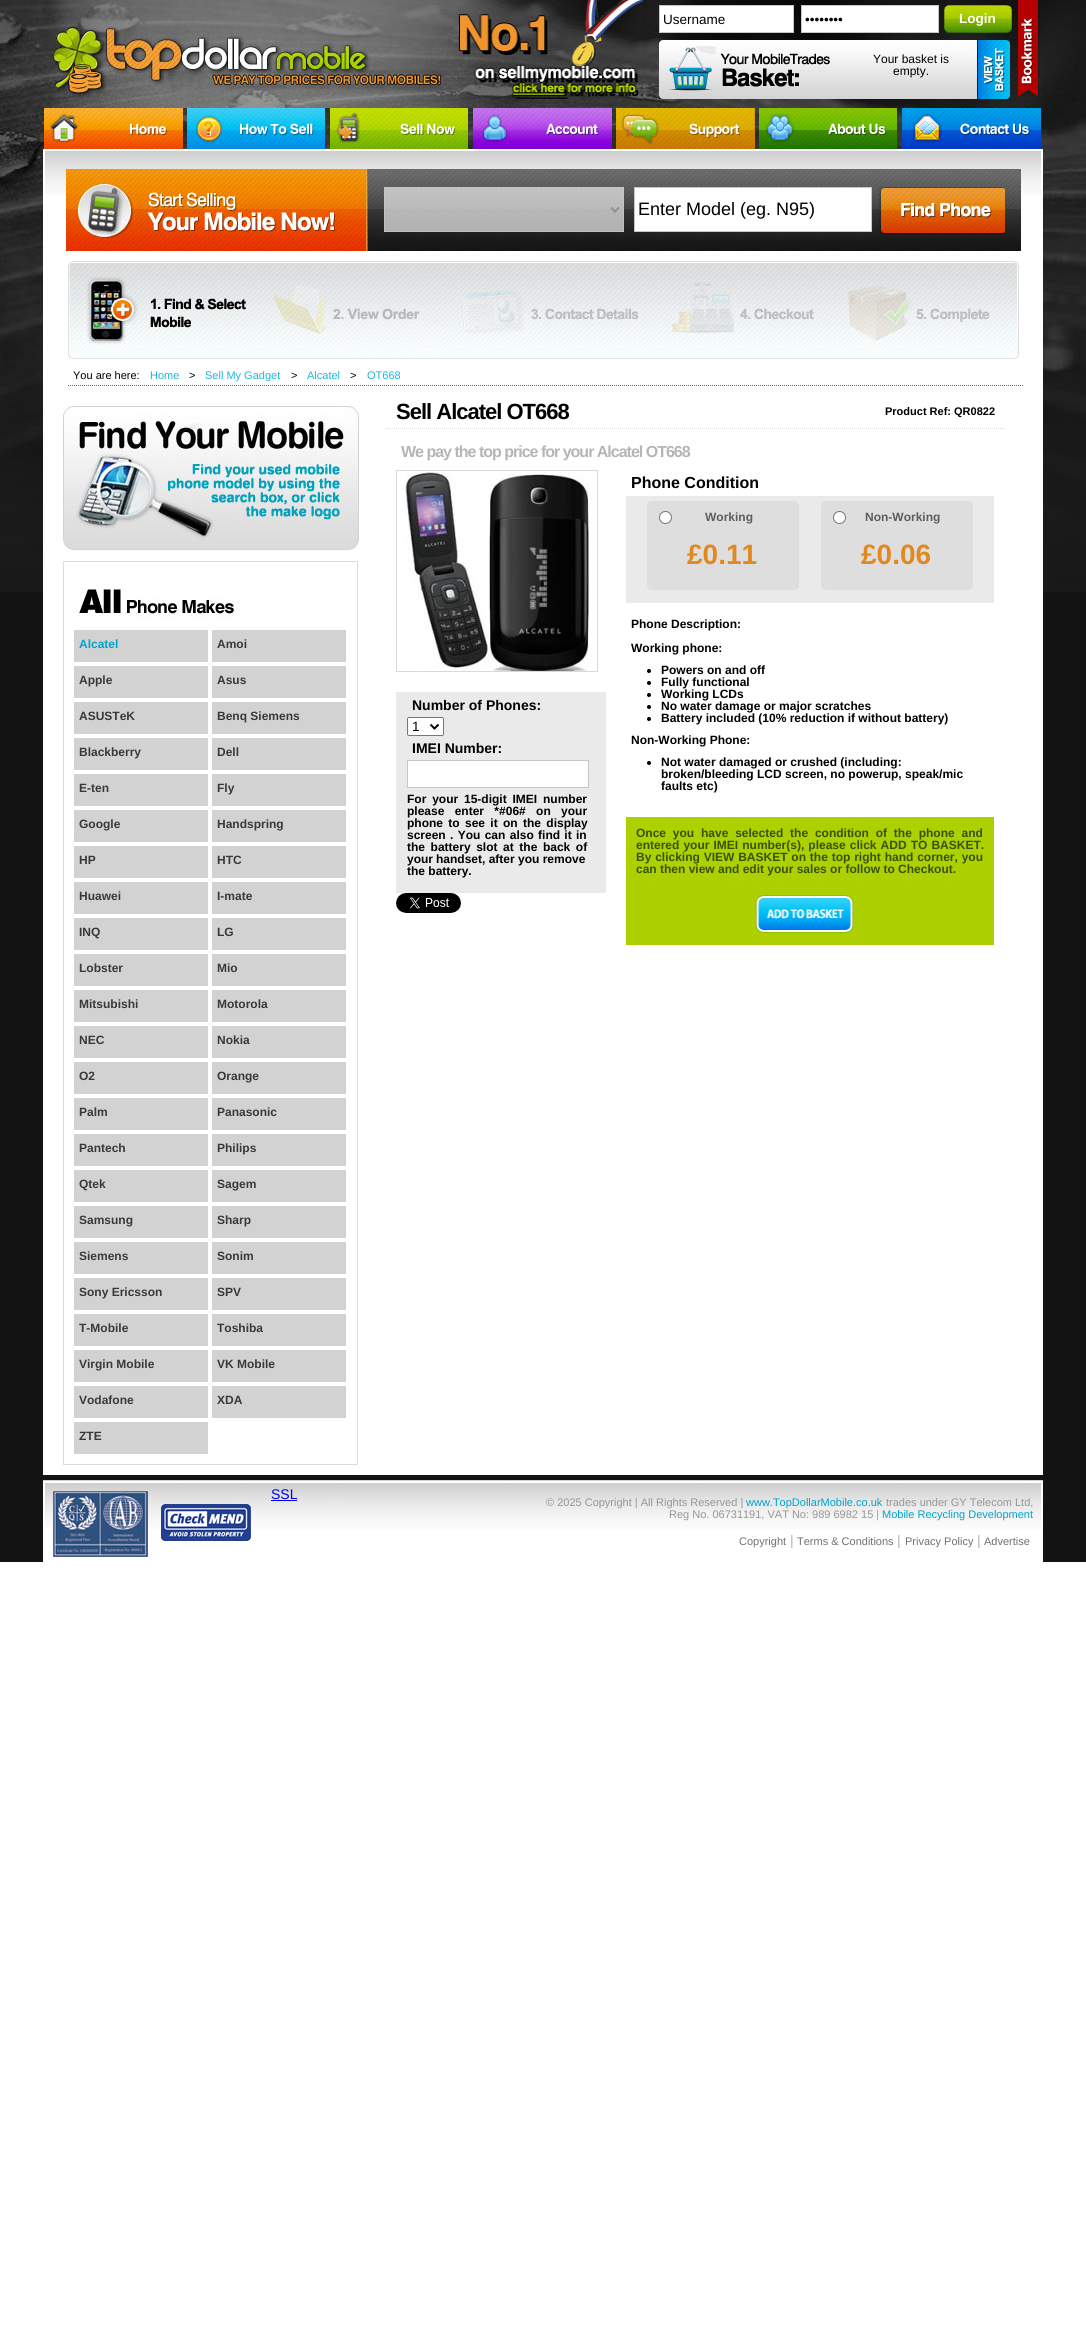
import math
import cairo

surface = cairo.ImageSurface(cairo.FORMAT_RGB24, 1086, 2347)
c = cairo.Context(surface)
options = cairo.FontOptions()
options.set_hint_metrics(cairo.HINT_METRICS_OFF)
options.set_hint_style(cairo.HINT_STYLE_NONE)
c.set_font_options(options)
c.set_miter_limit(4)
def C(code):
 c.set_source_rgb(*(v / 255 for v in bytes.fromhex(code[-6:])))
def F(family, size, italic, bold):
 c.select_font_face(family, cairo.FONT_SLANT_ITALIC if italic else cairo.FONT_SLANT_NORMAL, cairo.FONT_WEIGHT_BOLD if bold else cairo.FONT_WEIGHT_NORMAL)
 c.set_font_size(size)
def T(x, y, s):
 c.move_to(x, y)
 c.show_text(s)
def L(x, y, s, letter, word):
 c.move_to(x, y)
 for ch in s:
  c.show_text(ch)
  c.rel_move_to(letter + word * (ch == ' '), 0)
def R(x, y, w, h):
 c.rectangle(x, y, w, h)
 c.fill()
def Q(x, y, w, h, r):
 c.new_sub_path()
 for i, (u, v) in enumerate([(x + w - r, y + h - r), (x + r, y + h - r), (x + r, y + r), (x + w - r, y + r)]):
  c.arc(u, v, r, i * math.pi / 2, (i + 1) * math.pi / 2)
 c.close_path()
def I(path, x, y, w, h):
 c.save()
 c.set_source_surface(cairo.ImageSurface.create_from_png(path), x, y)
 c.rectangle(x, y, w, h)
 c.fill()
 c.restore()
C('ffffff')
c.paint()
C('131313')
R(0,592,1086,970)
I('1.png',0,0,1086,592)
I('2.png',643,0,400,108)
I('3.png',43,0,414,108)
I('4.png',457,0,186,108)
C('ffffff')
c.rectangle(659.5,5.5,134,27)
c.fill_preserve()
C('c7c7c7')
c.set_line_width(1)
c.stroke()
F('Liberation Sans',13.5,0,0)
C('000000')
T(663,24,'Username')
C('ffffff')
c.rectangle(801.5,5.5,137,27)
c.fill_preserve()
C('c7c7c7')
c.stroke()
C('000000')
T(805,24,'••••••••')
I('5.png',944,5,68,28)
F('Liberation Sans',13.5,0,1)
C('ffffff')
T(959,23,'Login')
I('6.png',659,40,318,59)
F('Liberation Sans',12,0,0)
C('000000')
T(873,63,'Your basket is')
T(893,75,'empty.')
I('7.png',977,40,33,59)
I('8.png',1018,0,21,97)
I('9.png',44,108,139,41)
I('10.png',187,108,138,41)
I('11.png',330,108,138,41)
I('12.png',473,108,139,41)
I('13.png',616,108,139,41)
I('14.png',759,108,138,41)
I('15.png',902,108,139,41)
C('ffffff')
R(43,149,1000,1326)
I('16.png',45,151,996,44)
I('17.png',66,169,955,82)
c.set_source_rgba(0.937,0.937,0.937,0.7)
R(384,187,240,45)
c.rectangle(384.5,187.5,239,44)
c.set_source_rgba(0.78,0.78,0.78,0.7)
c.stroke()
c.new_path()
c.move_to(611,207.5)
c.line_to(615,211.5)
c.line_to(619,207.5)
c.set_source_rgba(0.502,0.502,0.502,0.7)
c.set_line_width(2)
c.stroke()
C('ffffff')
c.rectangle(634.5,187.5,237,44)
c.fill_preserve()
C('c7c7c7')
c.set_line_width(1)
c.stroke()
F('Liberation Sans',18,0,0)
C('000000')
T(638,215,'Enter Model (eg. N95)')
I('18.png',878,187,127,48)
I('19.png',68,261,951,98)
c.new_path()
c.move_to(68,385.5)
c.line_to(1023,385.5)
C('646464')
c.set_dash([1,1])
c.stroke()
F('Liberation Sans',11,0,0)
C('000000')
T(73,379,'You are here:')
C('1fb4d9')
T(150,379,'Home')
C('000000')
T(189,379,'>')
C('1fb4d9')
T(205,379,'Sell My Gadget')
C('000000')
T(291,379,'>')
C('1fb4d9')
T(307,379,'Alcatel')
C('000000')
T(350,379,'>')
C('1fb4d9')
T(367,379,'OT668')
I('20.png',63,406,296,144)
c.rectangle(63.5,561.5,294,903)
C('dcdcdc')
c.set_dash([])
c.stroke()
I('21.png',79,589,158,30)
C('d2d2d2')
R(74,630,134,32)
F('Liberation Sans',12,0,1)
C('00a3cc')
T(79,648,'Alcatel')
C('d2d2d2')
R(212,630,134,32)
C('393939')
T(217,648,'Amoi')
C('d2d2d2')
R(74,666,134,32)
C('393939')
T(79,684,'Apple')
C('d2d2d2')
R(212,666,134,32)
C('393939')
T(217,684,'Asus')
C('d2d2d2')
R(74,702,134,32)
C('393939')
T(79,720,'ASUSTeK')
C('d2d2d2')
R(212,702,134,32)
C('393939')
T(217,720,'Benq Siemens')
C('d2d2d2')
R(74,738,134,32)
C('393939')
T(79,756,'Blackberry')
C('d2d2d2')
R(212,738,134,32)
C('393939')
T(217,756,'Dell')
C('d2d2d2')
R(74,774,134,32)
C('393939')
T(79,792,'E-ten')
C('d2d2d2')
R(212,774,134,32)
C('393939')
T(217,792,'Fly')
C('d2d2d2')
R(74,810,134,32)
C('393939')
T(79,828,'Google')
C('d2d2d2')
R(212,810,134,32)
C('393939')
T(217,828,'Handspring')
C('d2d2d2')
R(74,846,134,32)
C('393939')
T(79,864,'HP')
C('d2d2d2')
R(212,846,134,32)
C('393939')
T(217,864,'HTC')
C('d2d2d2')
R(74,882,134,32)
C('393939')
T(79,900,'Huawei')
C('d2d2d2')
R(212,882,134,32)
C('393939')
T(217,900,'I-mate')
C('d2d2d2')
R(74,918,134,32)
C('393939')
T(79,936,'INQ')
C('d2d2d2')
R(212,918,134,32)
C('393939')
T(217,936,'LG')
C('d2d2d2')
R(74,954,134,32)
C('393939')
T(79,972,'Lobster')
C('d2d2d2')
R(212,954,134,32)
C('393939')
T(217,972,'Mio')
C('d2d2d2')
R(74,990,134,32)
C('393939')
T(79,1008,'Mitsubishi')
C('d2d2d2')
R(212,990,134,32)
C('393939')
T(217,1008,'Motorola')
C('d2d2d2')
R(74,1026,134,32)
C('393939')
T(79,1044,'NEC')
C('d2d2d2')
R(212,1026,134,32)
C('393939')
T(217,1044,'Nokia')
C('d2d2d2')
R(74,1062,134,32)
C('393939')
T(79,1080,'O2')
C('d2d2d2')
R(212,1062,134,32)
C('393939')
T(217,1080,'Orange')
C('d2d2d2')
R(74,1098,134,32)
C('393939')
T(79,1116,'Palm')
C('d2d2d2')
R(212,1098,134,32)
C('393939')
T(217,1116,'Panasonic')
C('d2d2d2')
R(74,1134,134,32)
C('393939')
T(79,1152,'Pantech')
C('d2d2d2')
R(212,1134,134,32)
C('393939')
T(217,1152,'Philips')
C('d2d2d2')
R(74,1170,134,32)
C('393939')
T(79,1188,'Qtek')
C('d2d2d2')
R(212,1170,134,32)
C('393939')
T(217,1188,'Sagem')
C('d2d2d2')
R(74,1206,134,32)
C('393939')
T(79,1224,'Samsung')
C('d2d2d2')
R(212,1206,134,32)
C('393939')
T(217,1224,'Sharp')
C('d2d2d2')
R(74,1242,134,32)
C('393939')
T(79,1260,'Siemens')
C('d2d2d2')
R(212,1242,134,32)
C('393939')
T(217,1260,'Sonim')
C('d2d2d2')
R(74,1278,134,32)
C('393939')
T(79,1296,'Sony Ericsson')
C('d2d2d2')
R(212,1278,134,32)
C('393939')
T(217,1296,'SPV')
C('d2d2d2')
R(74,1314,134,32)
C('393939')
T(79,1332,'T-Mobile')
C('d2d2d2')
R(212,1314,134,32)
C('393939')
T(217,1332,'Toshiba')
C('d2d2d2')
R(74,1350,134,32)
C('393939')
T(79,1368,'Virgin Mobile')
C('d2d2d2')
R(212,1350,134,32)
C('393939')
T(217,1368,'VK Mobile')
C('d2d2d2')
R(74,1386,134,32)
C('393939')
T(79,1404,'Vodafone')
C('d2d2d2')
R(212,1386,134,32)
C('393939')
T(217,1404,'XDA')
C('d2d2d2')
R(74,1422,134,32)
C('393939')
T(79,1440,'ZTE')
c.new_path()
c.move_to(386,428.5)
c.line_to(1006,428.5)
C('dddddd')
c.set_dash([1,1])
c.stroke()
F('Liberation Sans',22,0,1)
C('000000')
L(396,419,'Sell Alcatel OT668',-1,0)
F('Liberation Sans',11,0,1)
T(885,415,'Product Ref: QR0822')
F('Liberation Sans',16,0,1)
C('b5b5b5')
L(401,457,'We pay the top price for your Alcatel OT668',-1,0)
c.rectangle(396.5,470.5,201,201)
C('d9d9d9')
c.set_dash([])
c.stroke()
I('22.png',405,471,184,200)
c.rectangle(396.5,692.5,209,200)
C('eaeaea')
c.stroke()
R(397,693,208,199)
F('Liberation Sans',14,0,1)
C('000000')
T(412,710,'Number of Phones:')
C('ffffff')
Q(407.5,717.5,36,18,1.5)
c.fill_preserve()
C('767676')
c.stroke()
c.new_path()
c.move_to(430.5,724.5)
c.line_to(434.5,728.5)
c.line_to(438.5,724.5)
C('000000')
c.set_line_width(2)
c.stroke()
F('Liberation Sans',13.5,0,0)
T(412,731,'1')
F('Liberation Sans',14,0,1)
T(412,753,'IMEI Number:')
C('ffffff')
c.rectangle(407.5,760.5,181,27)
c.fill_preserve()
C('c7c7c7')
c.set_line_width(1)
c.stroke()
F('Liberation Sans',12,0,1)
C('000000')
L(407,803,'For your 15-digit IMEI number',0,2.5)
L(407,815,'please enter *#06# on your',0,7)
L(407,827,'phone to see it on the display',0,2)
L(407,839,'screen . You can also find it in',0,1)
L(407,851,'the battery slot at the back of',0,2.25)
T(407,863,'your')
T(436,863,'handset, after you remove')
T(407,875,'the battery.')
I('23.png',396,893,65,20)
F('Liberation Sans',16,0,1)
T(631,488,'Phone Condition')
C('eaeaea')
R(626,496,368,107)
C('dedede')
Q(647,501,152,89,5)
c.fill()
C('ffffff')
c.arc(665.5,517.5,6,0,2 * math.pi)
c.fill_preserve()
C('767676')
c.stroke()
F('Liberation Sans',12,0,1)
C('5d5d5d')
T(705,521,'Working')
F('Liberation Sans',28,0,1)
C('e18920')
T(687,564,'£0.11')
C('dedede')
Q(821,501,152,89,5)
c.fill()
C('ffffff')
c.arc(839.5,517.5,6,0,2 * math.pi)
c.fill_preserve()
C('767676')
c.stroke()
F('Liberation Sans',12,0,1)
C('5d5d5d')
T(865,521,'Non-Working')
F('Liberation Sans',28,0,1)
C('e18920')
T(861,564,'£0.06')
F('Liberation Sans',12,0,1)
C('000000')
T(631,628,'Phone Description:')
T(631,652,'Working phone:')
c.new_path()
c.arc(649,671,2,0,2 * math.pi)
c.fill()
T(661,674,'Powers on and off')
c.new_path()
c.arc(649,683,2,0,2 * math.pi)
c.fill()
T(661,686,'Fully functional')
c.new_path()
c.arc(649,695,2,0,2 * math.pi)
c.fill()
T(661,698,'Working LCDs')
c.new_path()
c.arc(649,707,2,0,2 * math.pi)
c.fill()
T(661,710,'No water damage or major scratches')
c.new_path()
c.arc(649,719,2,0,2 * math.pi)
c.fill()
T(661,722,'Battery included (10% reduction if without battery)')
T(631,744,'Non-Working Phone:')
c.new_path()
c.arc(649,763,2,0,2 * math.pi)
c.fill()
T(661,766,'Not water damaged or crushed (including:')
T(661,778,'broken/bleeding LCD screen, no powerup, speak/mic')
T(661,790,'faults etc)')
C('add100')
R(626,817,368,128)
C('375105')
L(636,837,'Once you have selected the condition of the phone and',0,3.5)
L(636,849,'entered your IMEI number(s), please click ADD TO BASKET.',0,.75)
L(636,861,'By clicking VIEW BASKET on the top right hand corner, you',0,.5)
T(636,873,'can then view and edit your sales or follow to Checkout.')
I('24.png',755,895,99,38)
C('ffffff')
R(43,1481,1000,81)
I('25.png',44,1482,998,47)
C('d0d0d0')
R(43,1480,1000,1)
I('26.png',53,1491,95,66)
I('27.png',161,1504,90,37)
F('Liberation Sans',14,0,0)
C('0000ee')
T(271,1499,'SSL')
R(271,1500,26,1)
F('Liberation Sans',11,0,0)
C('979696')
T(546,1506,'© 2025 Copyright | All Rights Reserved |')
C('00a3cc')
T(746,1506,'www.TopDollarMobile.co.uk')
C('979696')
T(886,1506,'trades under GY Telecom Ltd,')
T(669,1518,'Reg No. 06731191, VAT No: 989 6982 15 |')
C('00a3cc')
T(882,1518,'Mobile Recycling Development')
C('707070')
T(739,1545,'Copyright')
F('Liberation Sans',14,0,0)
C('b5b5b5')
T(790,1545,'|')
F('Liberation Sans',11,0,0)
C('707070')
T(797,1545,'Terms & Conditions')
F('Liberation Sans',14,0,0)
C('b5b5b5')
T(897,1545,'|')
F('Liberation Sans',11,0,0)
C('707070')
T(905,1545,'Privacy Policy')
F('Liberation Sans',14,0,0)
C('b5b5b5')
T(977,1545,'|')
F('Liberation Sans',11,0,0)
C('707070')
T(984,1545,'Advertise')
surface.write_to_png('o.png')
